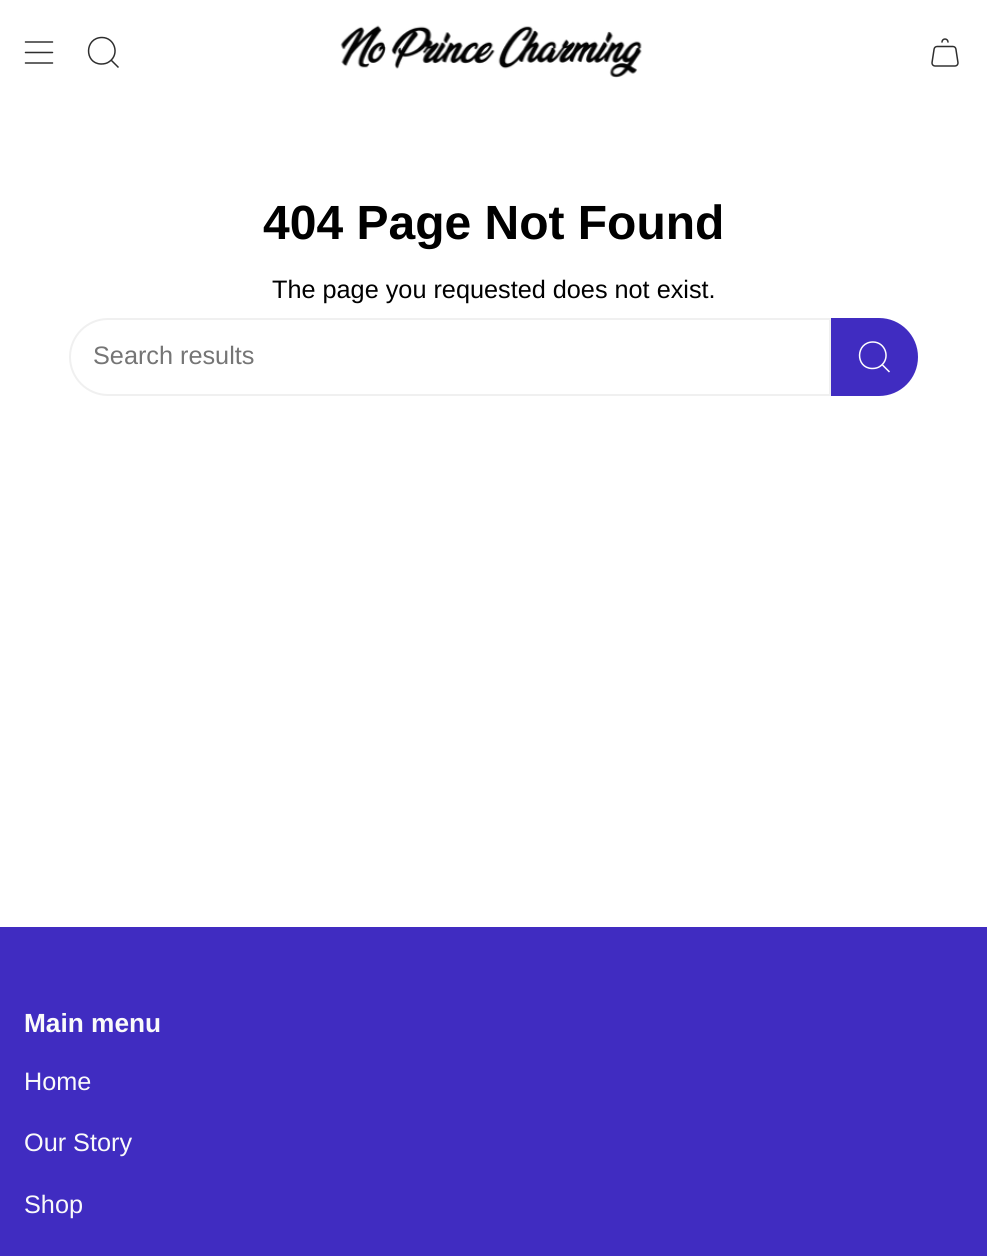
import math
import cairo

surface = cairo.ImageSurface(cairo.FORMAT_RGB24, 987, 1256)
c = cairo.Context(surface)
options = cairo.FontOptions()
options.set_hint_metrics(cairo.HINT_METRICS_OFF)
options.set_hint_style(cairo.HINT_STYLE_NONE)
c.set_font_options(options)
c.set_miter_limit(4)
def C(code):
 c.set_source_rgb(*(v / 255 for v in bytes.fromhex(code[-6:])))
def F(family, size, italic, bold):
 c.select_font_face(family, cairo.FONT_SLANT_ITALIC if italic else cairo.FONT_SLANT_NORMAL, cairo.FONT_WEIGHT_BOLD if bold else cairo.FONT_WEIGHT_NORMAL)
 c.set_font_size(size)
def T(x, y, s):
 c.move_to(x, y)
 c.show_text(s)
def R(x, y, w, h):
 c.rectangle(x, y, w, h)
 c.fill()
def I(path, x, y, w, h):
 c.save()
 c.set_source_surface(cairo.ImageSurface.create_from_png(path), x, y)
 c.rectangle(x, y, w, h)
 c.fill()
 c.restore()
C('ffffff')
c.paint()
c.new_path()
c.move_to(25.5,42)
c.line_to(52.5,42)
c.move_to(25.5,52.5)
c.line_to(52.5,52.5)
c.move_to(25.5,63)
c.line_to(52.5,63)
C('2e2e2e')
c.set_line_width(1.5)
c.set_line_cap(cairo.LINE_CAP_ROUND)
c.set_line_join(cairo.LINE_JOIN_ROUND)
c.stroke()
c.new_path()
c.move_to(102,37.5)
c.curve_to(114.5,37.5,120,54,109.5,61.5)
c.curve_to(107,63.5,104,64,101,64)
c.curve_to(84,63.5,84.5,37.5,102,37.5)
c.close_path()
c.move_to(111,60)
c.line_to(118.5,67.5)
c.set_line_cap(cairo.LINE_CAP_BUTT)
c.set_line_join(cairo.LINE_JOIN_MITER)
c.stroke()
I('1.png',340,25,302,53)
I('2.png',931,38,28,29)
F('Liberation Sans',48,0,1)
C('000000')
T(263,239,'404 Page Not Found')
F('Liberation Sans',25.25,0,0)
T(272,298,'The page you requested does not exist.')
c.new_path()
c.move_to(108,319)
c.line_to(830,319)
c.line_to(830,395)
c.line_to(108,395)
c.curve_to(87,395,70,378,70,357)
c.curve_to(70,336,87,319,108,319)
c.close_path()
C('f0f0f0')
c.set_line_width(2)
c.stroke()
C('757575')
T(93,364,'Search results')
C('402cc1')
c.new_path()
c.move_to(832,319)
c.line_to(879,319)
c.curve_to(900,319,917,336,917,357)
c.curve_to(917,378,900,395,879,395)
c.line_to(832,395)
c.close_path()
c.fill_preserve()
c.stroke()
c.new_path()
c.move_to(873,342)
c.curve_to(885.5,342,891,358.5,880.5,366)
c.curve_to(878,368,875,368.5,872,368.5)
c.curve_to(855,368,855.5,342,873,342)
c.close_path()
c.move_to(882,364.5)
c.line_to(889.5,372)
C('ffffff')
c.set_line_width(1.5)
c.stroke()
C('402cc1')
R(0,927,987,329)
F('Liberation Sans',26.25,0,1)
C('fafafa')
T(24,1032,'Main menu')
F('Liberation Sans',25.25,0,0)
T(24,1090,'Home')
T(24,1151,'Our Story')
T(24,1213,'Shop')
surface.write_to_png('o.png')
